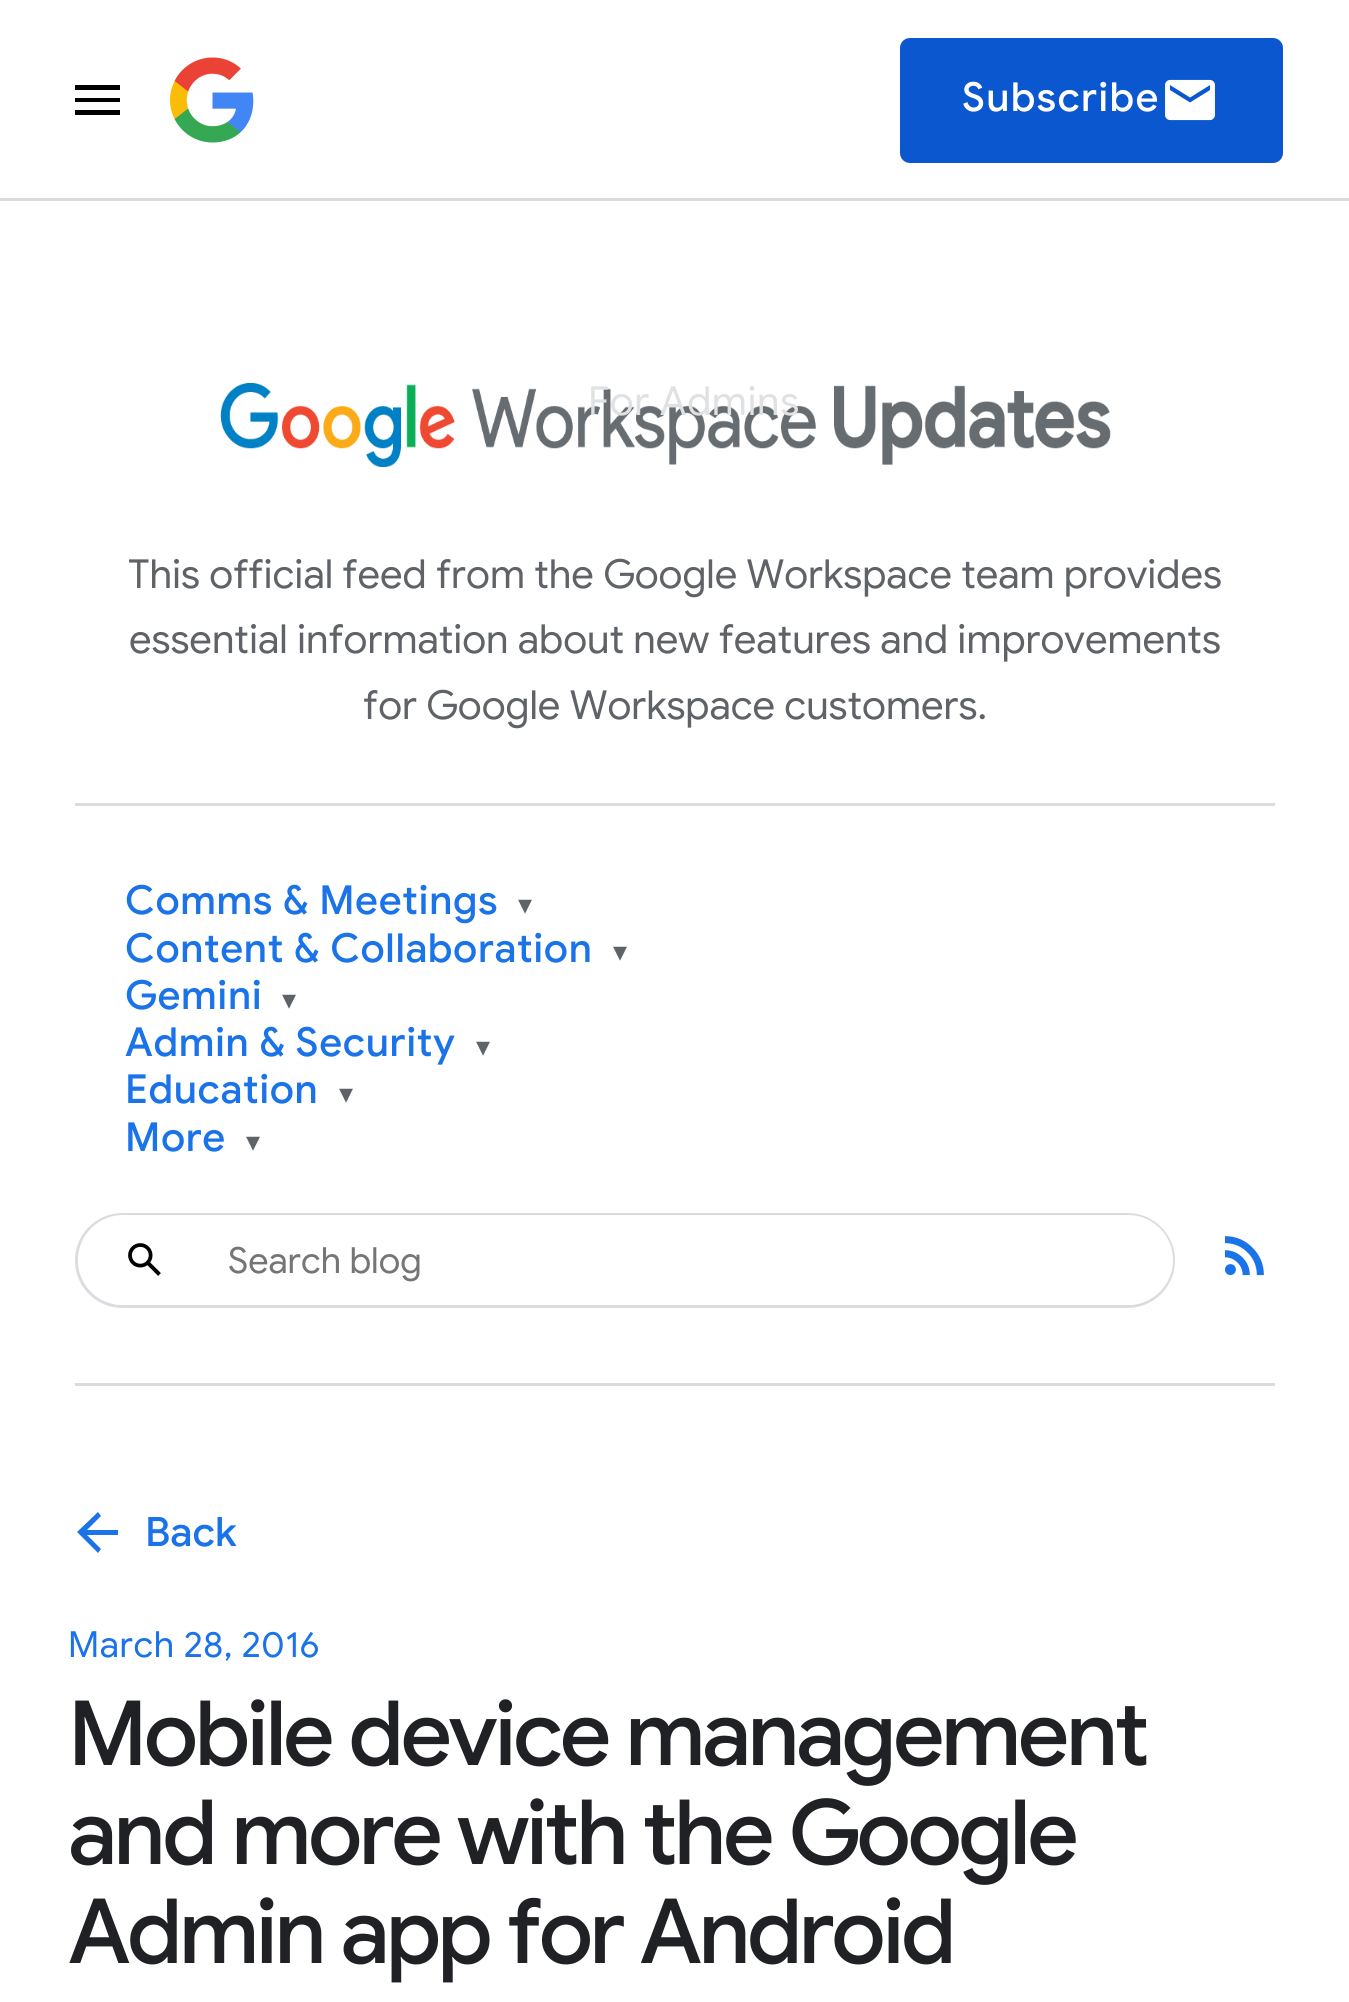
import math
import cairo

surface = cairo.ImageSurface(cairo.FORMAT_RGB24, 1349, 2002)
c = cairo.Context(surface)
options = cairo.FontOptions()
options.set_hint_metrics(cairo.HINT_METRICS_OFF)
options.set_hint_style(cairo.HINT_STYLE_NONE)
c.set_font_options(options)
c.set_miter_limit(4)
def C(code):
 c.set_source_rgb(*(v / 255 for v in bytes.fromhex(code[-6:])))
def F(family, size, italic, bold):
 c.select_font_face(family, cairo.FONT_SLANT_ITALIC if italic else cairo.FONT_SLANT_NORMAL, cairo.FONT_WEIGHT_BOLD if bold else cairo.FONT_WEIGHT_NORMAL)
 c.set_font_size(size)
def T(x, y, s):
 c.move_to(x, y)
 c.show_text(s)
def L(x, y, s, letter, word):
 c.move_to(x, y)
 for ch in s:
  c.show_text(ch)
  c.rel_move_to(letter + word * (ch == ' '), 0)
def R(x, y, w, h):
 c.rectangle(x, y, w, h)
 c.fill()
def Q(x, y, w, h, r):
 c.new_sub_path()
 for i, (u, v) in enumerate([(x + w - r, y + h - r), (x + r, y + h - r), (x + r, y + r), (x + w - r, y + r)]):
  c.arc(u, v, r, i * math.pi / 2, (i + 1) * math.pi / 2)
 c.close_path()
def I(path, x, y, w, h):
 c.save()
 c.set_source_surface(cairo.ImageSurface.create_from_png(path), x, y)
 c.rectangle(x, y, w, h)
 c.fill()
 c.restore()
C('ffffff')
c.paint()
C('dadce0')
R(0,198,1349,3)
C('000000')
c.new_path()
c.move_to(75,115)
c.line_to(120,115)
c.line_to(120,110)
c.line_to(75,110)
c.close_path()
c.move_to(75,102)
c.line_to(120,102)
c.line_to(120,98)
c.line_to(75,98)
c.close_path()
c.move_to(75,85)
c.line_to(75,90)
c.line_to(120,90)
c.line_to(120,85)
c.close_path()
c.fill()
I('1.png',170,57,84,86)
C('0b57d0')
Q(900,38,383,125,10)
c.fill()
F('Google Sans Medium',40,0,0)
C('ffffff')
L(962,111,'Subscribe',1.25,0)
I('2.png',1165,79,50,42)
I('3.png',220,383,891,84)
F('Google Sans',40,0,0)
C('e0e1e2')
L(588,415,'For Admins',.6,0)
C('5f6368')
T(128,588,'This official feed from the Google Workspace team provides')
T(129,653,'essential information about new features and improvements')
T(363,719,'for Google Workspace customers.')
C('dadce0')
R(75,803,1200,3)
F('Google Sans Medium',40,0,0)
C('1a73e8')
L(125,914,'Comms & Meetings',.6,0)
F('DejaVu Sans',28,0,0)
C('5f6368')
L(518,914,'▾',.6,0)
F('Google Sans Medium',40,0,0)
C('1a73e8')
L(125,962,'Content & Collaboration',.6,0)
F('DejaVu Sans',28,0,0)
C('5f6368')
L(613,961,'▾',.6,0)
F('Google Sans Medium',40,0,0)
C('1a73e8')
L(125,1009,'Gemini',.6,0)
F('DejaVu Sans',28,0,0)
C('5f6368')
L(282,1009,'▾',.6,0)
F('Google Sans Medium',40,0,0)
C('1a73e8')
L(125,1056,'Admin & Security',.6,0)
F('DejaVu Sans',28,0,0)
C('5f6368')
L(476,1056,'▾',.6,0)
F('Google Sans Medium',40,0,0)
C('1a73e8')
L(125,1103,'Education',.6,0)
F('DejaVu Sans',28,0,0)
C('5f6368')
L(339,1103,'▾',.6,0)
F('Google Sans Medium',40,0,0)
C('1a73e8')
L(125,1151,'More',.6,0)
F('DejaVu Sans',28,0,0)
C('5f6368')
L(246,1151,'▾',.6,0)
Q(76.5,1214.5,1097,92,46)
C('dadce0')
c.set_line_width(3)
c.stroke()
C('ffffff')
Q(78,1215,1095,90,45)
c.fill()
I('4.png',128,1243,33,33)
F('Google Sans',36,0,0)
C('757575')
T(228,1273,'Search blog')
I('5.png',1224,1236,40,40)
C('dadce0')
R(75,1383,1200,3)
C('1a73e8')
c.new_path()
c.move_to(118,1530)
c.line_to(118,1535)
c.line_to(87,1535)
c.line_to(101,1549)
c.line_to(98,1553)
c.line_to(77,1532)
c.line_to(98,1512)
c.line_to(101,1516)
c.line_to(87,1530)
c.close_path()
c.fill()
F('Google Sans Medium',40.5,0,0)
T(145,1546,'Back')
F('Google Sans',36,0,0)
L(68,1657,'March 28, 2016',.6,0)
F('Google Sans Medium',90,0,0)
C('202124')
L(68,1765,'Mobile device management',-3.6,0)
L(68,1864,'and more with the Google',-3.6,0)
L(68,1963,'Admin app for Android',-3.6,0)
surface.write_to_png('o.png')
